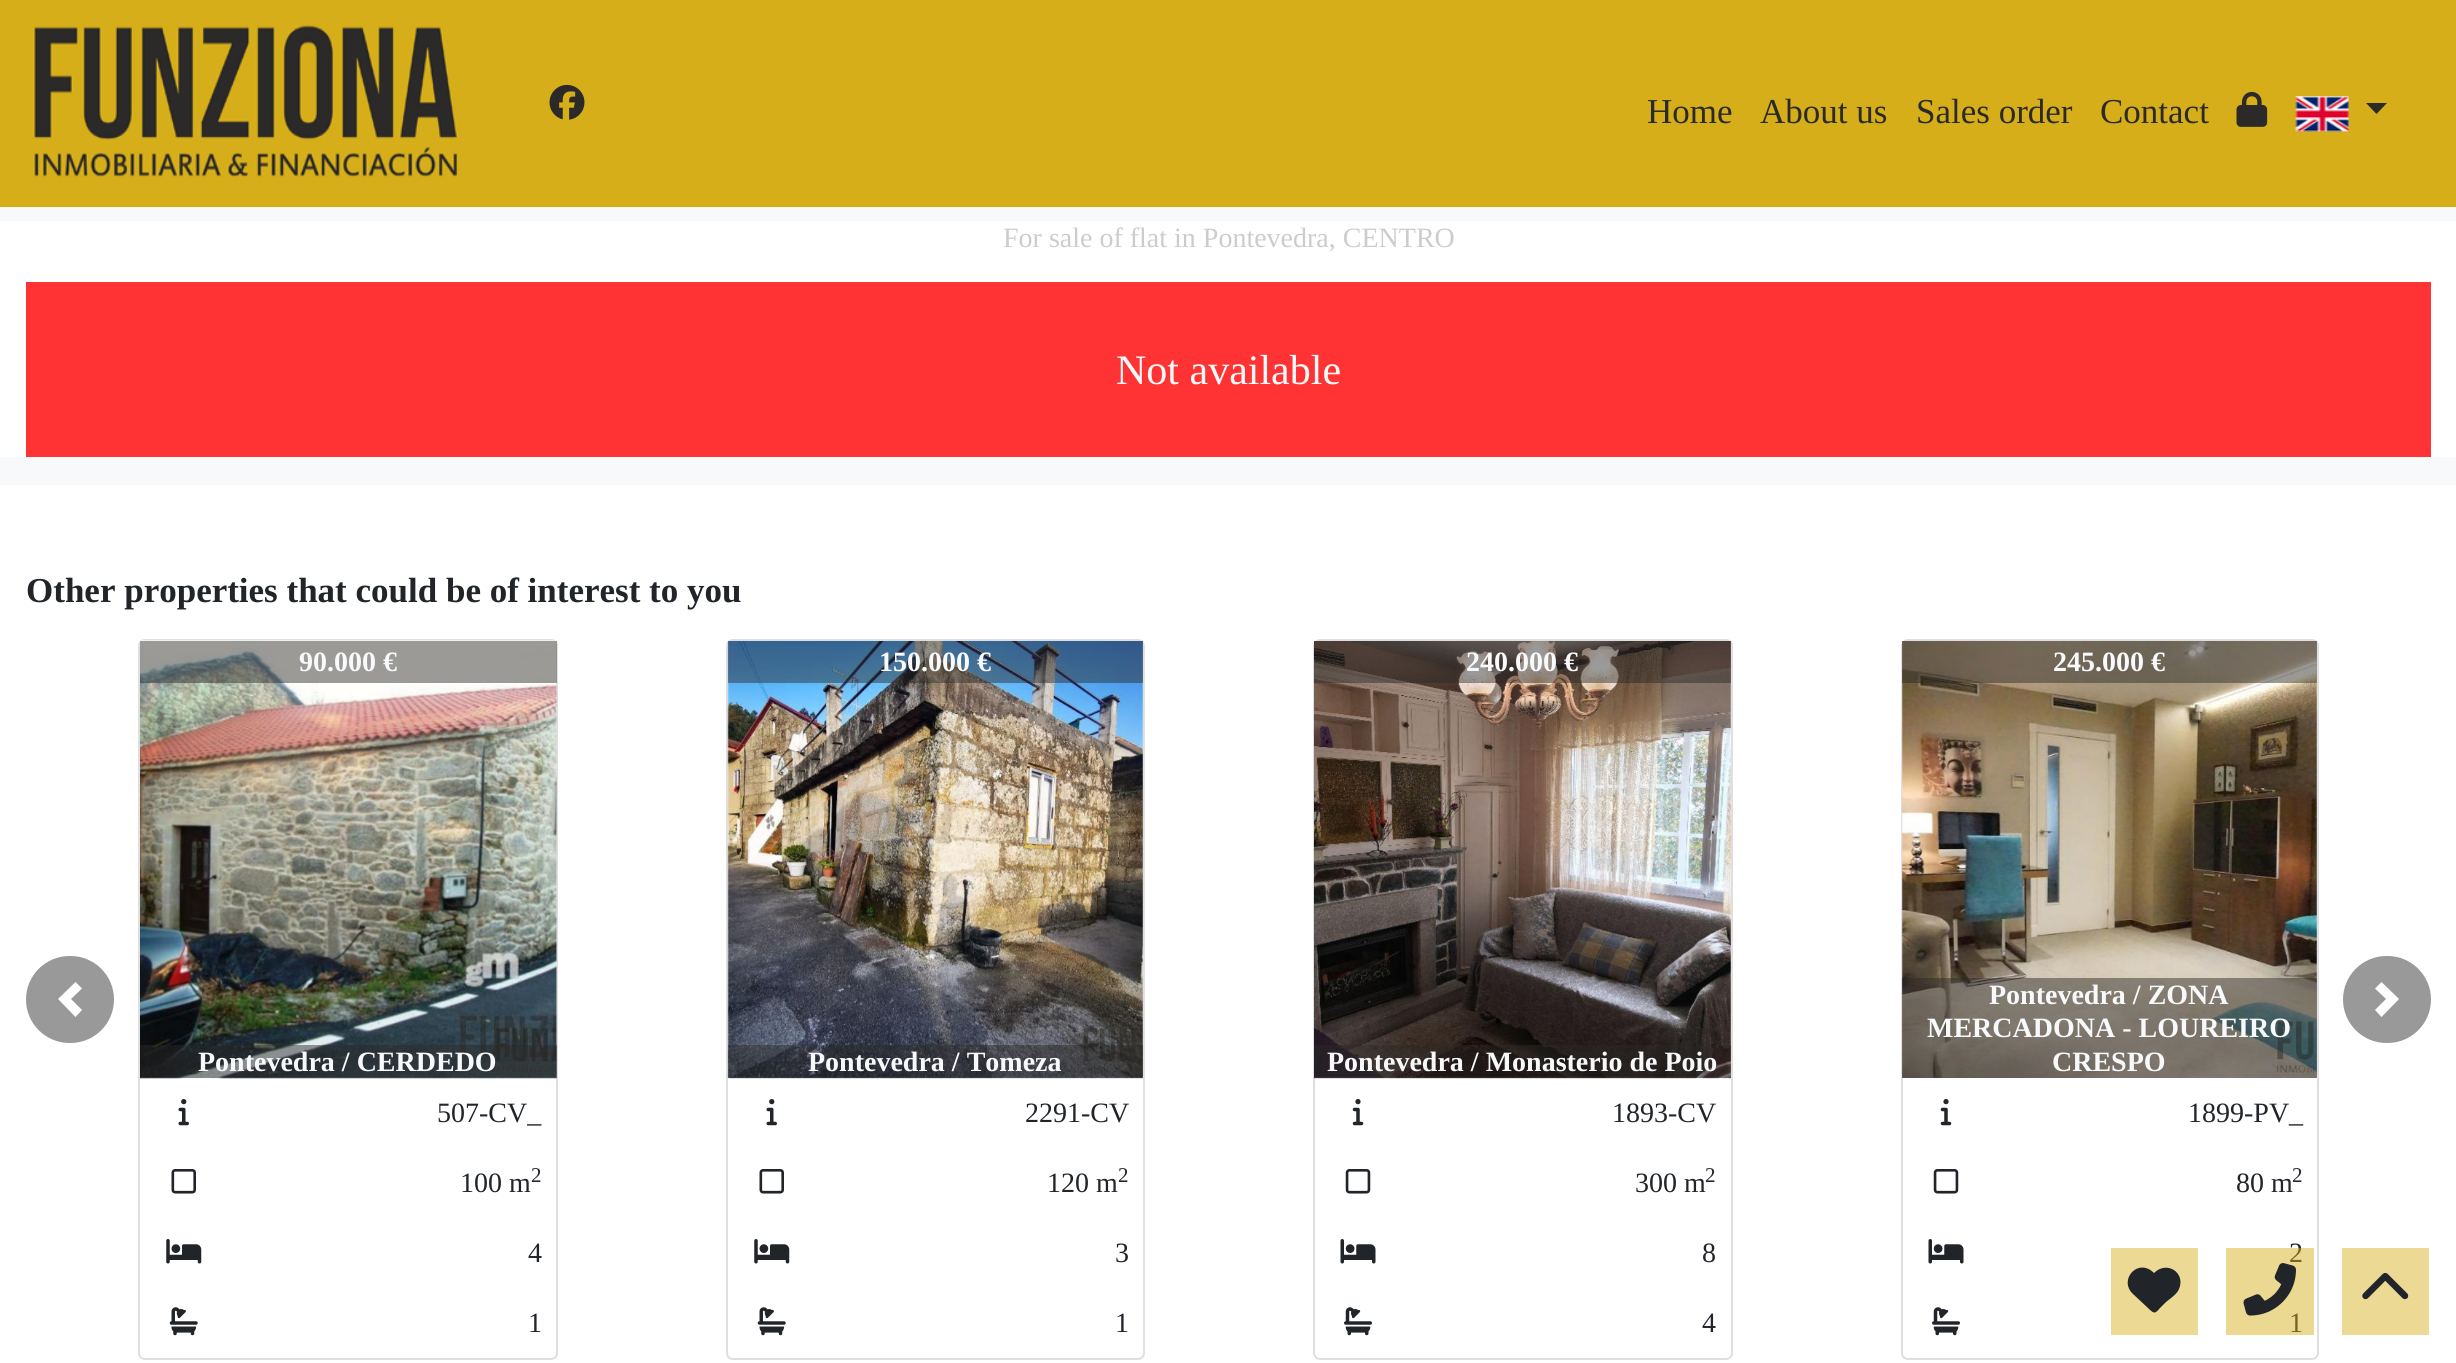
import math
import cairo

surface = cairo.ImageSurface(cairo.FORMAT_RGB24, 2456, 1363)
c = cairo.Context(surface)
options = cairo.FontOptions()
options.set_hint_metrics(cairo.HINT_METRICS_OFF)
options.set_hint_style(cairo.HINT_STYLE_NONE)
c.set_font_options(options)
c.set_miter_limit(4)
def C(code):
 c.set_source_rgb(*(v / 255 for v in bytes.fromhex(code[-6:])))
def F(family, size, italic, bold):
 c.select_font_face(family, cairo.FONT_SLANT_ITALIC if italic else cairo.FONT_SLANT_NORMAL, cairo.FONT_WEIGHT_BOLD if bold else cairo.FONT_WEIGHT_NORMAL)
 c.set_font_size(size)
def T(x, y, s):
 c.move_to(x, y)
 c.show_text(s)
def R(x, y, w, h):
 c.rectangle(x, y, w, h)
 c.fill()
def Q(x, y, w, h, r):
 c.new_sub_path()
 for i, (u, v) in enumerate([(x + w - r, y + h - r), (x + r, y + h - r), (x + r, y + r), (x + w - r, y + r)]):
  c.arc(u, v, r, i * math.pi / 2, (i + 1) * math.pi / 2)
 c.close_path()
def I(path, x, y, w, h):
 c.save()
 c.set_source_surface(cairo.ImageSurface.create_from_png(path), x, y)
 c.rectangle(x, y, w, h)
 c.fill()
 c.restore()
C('ffffff')
c.paint()
C('d6ae19')
R(0,0,2456,207)
I('1.png',33,25,425,152)
I('2.png',549,84,36,36)
F('Liberation Serif',35,0,0)
C('2b2a28')
T(1647,123,'Home')
T(1760,123,'About us')
T(1916,123,'Sales order')
T(2100,123,'Contact')
I('3.png',2236,91,32,36)
I('4.png',2295,96,54,36)
c.new_path()
c.move_to(2366,103)
c.line_to(2387,103)
c.line_to(2376.5,114)
c.close_path()
c.fill()
C('f8f9fa')
R(0,207,2456,278)
C('ffffff')
R(0,221,2456,236)
F('Liberation Serif',28,0,0)
C('cccccc')
T(1003,247,'For sale of flat in Pontevedra, CENTRO')
C('ff3333')
R(26,282,2405,175)
F('Liberation Serif',42,0,0)
C('f8f9fa')
T(1116,384,'Not available')
F('Liberation Serif',35,0,1)
C('212529')
T(26,602,'Other properties that could be of interest to you')
C('999999')
Q(26,956,88,87,43.5)
c.fill()
C('ffffff')
c.new_path()
c.move_to(75.5,982)
c.line_to(58,999)
c.line_to(75.5,1017)
c.line_to(82,1010)
c.line_to(71,999)
c.line_to(82,988.5)
c.close_path()
c.fill()
Q(139,640,418,719,6)
C('dfdfdf')
c.stroke()
I('5.png',140,640,417,439)
c.set_source_rgba(0.169,0.165,0.157,0.47)
R(140,641,417,42)
F('Liberation Serif',28,0,1)
C('f8f9fa')
T(299,671,'90.000 €')
c.set_source_rgba(0.169,0.165,0.157,0.47)
R(140,1045,417,33)
C('f8f9fa')
T(198,1071,'Pontevedra / CERDEDO')
I('6.png',178,1099,11,27)
F('Liberation Serif',28,0,0)
C('212529')
T(437,1122,'507-CV_')
I('7.png',171,1169,25,25)
T(460,1192,'100 m')
F('Liberation Serif',21,0,0)
T(531,1182,'2')
I('8.png',166,1239,36,25)
F('Liberation Serif',28,0,0)
T(528,1262,'4')
I('9.png',169,1307,29,29)
T(528,1332,'1')
Q(727,640,417,719,6)
C('dfdfdf')
c.stroke()
I('10.png',727,641,416,438)
c.set_source_rgba(0.169,0.165,0.157,0.47)
R(728,641,415,42)
F('Liberation Serif',28,0,1)
C('f8f9fa')
T(879,671,'150.000 €')
c.set_source_rgba(0.169,0.165,0.157,0.47)
R(728,1045,415,33)
C('f8f9fa')
T(808,1071,'Pontevedra / Tomeza')
I('6.png',766,1099,11,27)
F('Liberation Serif',28,0,0)
C('212529')
T(1025,1122,'2291-CV')
I('7.png',759,1169,25,25)
T(1047,1192,'120 m')
F('Liberation Serif',21,0,0)
T(1118,1182,'2')
I('8.png',754,1239,36,25)
F('Liberation Serif',28,0,0)
T(1115,1262,'3')
I('9.png',757,1307,29,29)
T(1115,1332,'1')
Q(1314,640,418,719,6)
C('dfdfdf')
c.stroke()
I('11.png',1314,641,417,438)
c.set_source_rgba(0.169,0.165,0.157,0.47)
R(1314,641,417,42)
F('Liberation Serif',28,0,1)
C('f8f9fa')
T(1466,671,'240.000 €')
c.set_source_rgba(0.169,0.165,0.157,0.47)
R(1314,1045,417,33)
C('f8f9fa')
T(1327,1071,'Pontevedra / Monasterio de Poio')
I('12.png',1352,1099,12,27)
F('Liberation Serif',28,0,0)
C('212529')
T(1612,1122,'1893-CV')
I('13.png',1345,1169,26,25)
T(1635,1192,'300 m')
F('Liberation Serif',21,0,0)
T(1705,1182,'2')
I('14.png',1340,1239,36,25)
F('Liberation Serif',28,0,0)
T(1702,1262,'8')
I('15.png',1344,1307,28,29)
T(1702,1332,'4')
Q(1902,640,416,719,6)
C('dfdfdf')
c.stroke()
I('16.png',1902,641,415,437)
c.set_source_rgba(0.169,0.165,0.157,0.47)
R(1902,641,415,42)
F('Liberation Serif',28,0,1)
C('f8f9fa')
T(2053,671,'245.000 €')
c.set_source_rgba(0.169,0.165,0.157,0.47)
R(1902,978,415,100)
C('f8f9fa')
T(1989,1004,'Pontevedra / ZONA')
T(1927,1037,'MERCADONA - LOUREIRO')
T(2052,1071,'CRESPO')
I('12.png',1940,1099,12,27)
F('Liberation Serif',28,0,0)
C('212529')
T(2188,1122,'1899-PV_')
I('13.png',1933,1169,26,25)
T(2236,1192,'80 m')
F('Liberation Serif',21,0,0)
T(2292,1182,'2')
I('14.png',1928,1239,36,25)
F('Liberation Serif',28,0,0)
T(2289,1262,'2')
I('15.png',1932,1307,28,29)
T(2289,1332,'1')
C('999999')
Q(2343,956,88,87,43.5)
c.fill()
C('ffffff')
c.new_path()
c.move_to(2381.5,982)
c.line_to(2375,988.5)
c.line_to(2386,999)
c.line_to(2375,1010)
c.line_to(2381.5,1017)
c.line_to(2399,999)
c.close_path()
c.fill()
C('ecd994')
R(2111,1248,87,87)
C('212529')
c.new_path()
c.move_to(2133,1294)
c.line_to(2151,1311)
c.line_to(2133,1294)
c.line_to(2148,1308)
c.curve_to(2154,1314,2155,1314,2160,1308)
c.line_to(2166,1302)
c.curve_to(2171,1298,2177,1294,2179,1289)
c.curve_to(2186,1273,2167,1260,2154,1273)
c.curve_to(2138,1257,2118,1280,2133,1294)
c.close_path()
c.fill()
c.set_source_rgba(0.839,0.682,0.098,0.47)
R(2226,1248,88,87)
I('17.png',2243,1263,53,53)
C('ecd994')
R(2342,1248,87,87)
I('18.png',2362,1272,47,28)
surface.write_to_png('o.png')
